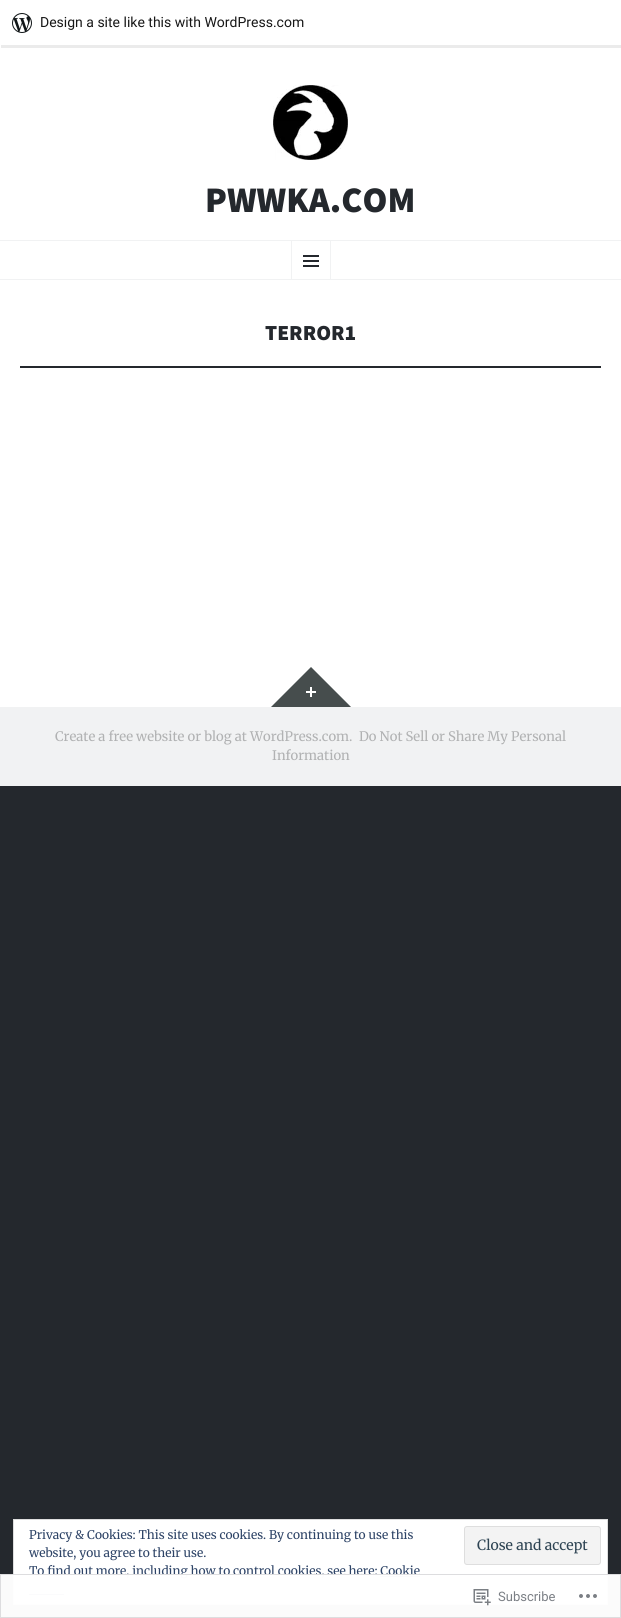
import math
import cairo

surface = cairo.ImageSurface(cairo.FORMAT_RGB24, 621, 1618)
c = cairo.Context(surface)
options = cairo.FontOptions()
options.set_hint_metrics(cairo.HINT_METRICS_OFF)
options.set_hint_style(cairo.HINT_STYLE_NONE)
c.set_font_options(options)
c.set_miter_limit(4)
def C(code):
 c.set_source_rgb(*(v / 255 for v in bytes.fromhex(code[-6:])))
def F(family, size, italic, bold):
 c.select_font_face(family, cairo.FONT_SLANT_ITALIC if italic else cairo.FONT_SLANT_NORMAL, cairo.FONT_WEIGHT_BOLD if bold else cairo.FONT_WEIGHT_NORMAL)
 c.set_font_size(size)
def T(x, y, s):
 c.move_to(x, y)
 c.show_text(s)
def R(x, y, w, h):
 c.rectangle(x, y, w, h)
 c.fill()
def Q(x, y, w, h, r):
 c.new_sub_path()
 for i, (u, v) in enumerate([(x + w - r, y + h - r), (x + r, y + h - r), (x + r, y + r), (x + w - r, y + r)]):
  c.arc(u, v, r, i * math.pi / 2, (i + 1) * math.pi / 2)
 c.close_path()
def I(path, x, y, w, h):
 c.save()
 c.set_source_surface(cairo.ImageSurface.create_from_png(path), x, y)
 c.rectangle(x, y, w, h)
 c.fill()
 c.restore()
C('24282d')
c.paint()
C('ffffff')
R(0,0,621,707)
c.set_source_rgba(0,0,0,0.08)
c.new_path()
c.move_to(1,45)
c.line_to(1,48)
c.line_to(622,48)
c.line_to(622,3)
c.line_to(621,3)
c.line_to(621,45)
c.close_path()
c.fill()
I('1.png',12,13,20,20)
F('Roboto',14,0,0)
C('171717')
T(40,27,'Design a site like this with WordPress.com')
I('2.png',273,85,75,75)
F('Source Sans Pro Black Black',36,0,0)
C('24282d')
T(205,212,'PWWKA.COM')
C('f1f2f3')
R(0,240,621,1)
R(0,279,621,1)
c.rectangle(291.5,240.5,39,39)
c.set_line_width(1)
c.stroke()
I('3.png',303,255,16,12)
F('Source Sans Pro Black Black',21.5,0,0)
C('24282d')
T(265,340,'TERROR1')
R(20,366,581,2)
C('464d4d')
c.new_path()
c.move_to(351,707)
c.line_to(271,707)
c.line_to(311,667)
c.close_path()
c.fill()
I('4.png',306,687,10,10)
C('f1f2f3')
R(0,707,621,79)
F('Merriweather',13.1,0,0)
C('b1b2b3')
T(55,741,'Create a free website or blog at WordPress.com.')
T(359,741,'Do Not Sell or Share My Personal')
T(272,760,'Information')
C('ffffff')
c.rectangle(13.5,1519.5,594,85)
c.fill_preserve()
C('dedede')
c.stroke()
F('Merriweather',12,0,0)
C('2e4467')
T(29,1539,'Privacy & Cookies: This site uses cookies. By continuing to use this')
T(29,1557,'website, you agree to their use.')
C('f3f3f3')
Q(464.5,1526.5,136,38,2.5)
c.fill_preserve()
C('dedede')
c.stroke()
F('Merriweather',14,0,0)
C('2e4453')
T(477,1550,'Close and accept')
F('Merriweather',12,0,0)
C('2e4467')
T(29,1575,'To find out more, including how to control cookies, see here: Cookie')
R(380,1576,40,1)
R(29,1594,35,1)
c.set_source_rgba(1,1,1,0.98)
R(0,1574,621,44)
c.rectangle(.5,1574.5,620,43)
c.set_source_rgba(0.863,0.863,0.871,0.98)
c.stroke()
I('5.png',473,1589,18,17)
F('Roboto',13,0,0)
C('7b7f85')
T(498,1601,'Subscribe')
I('6.png',579,1594,18,4)
surface.write_to_png('o.png')
